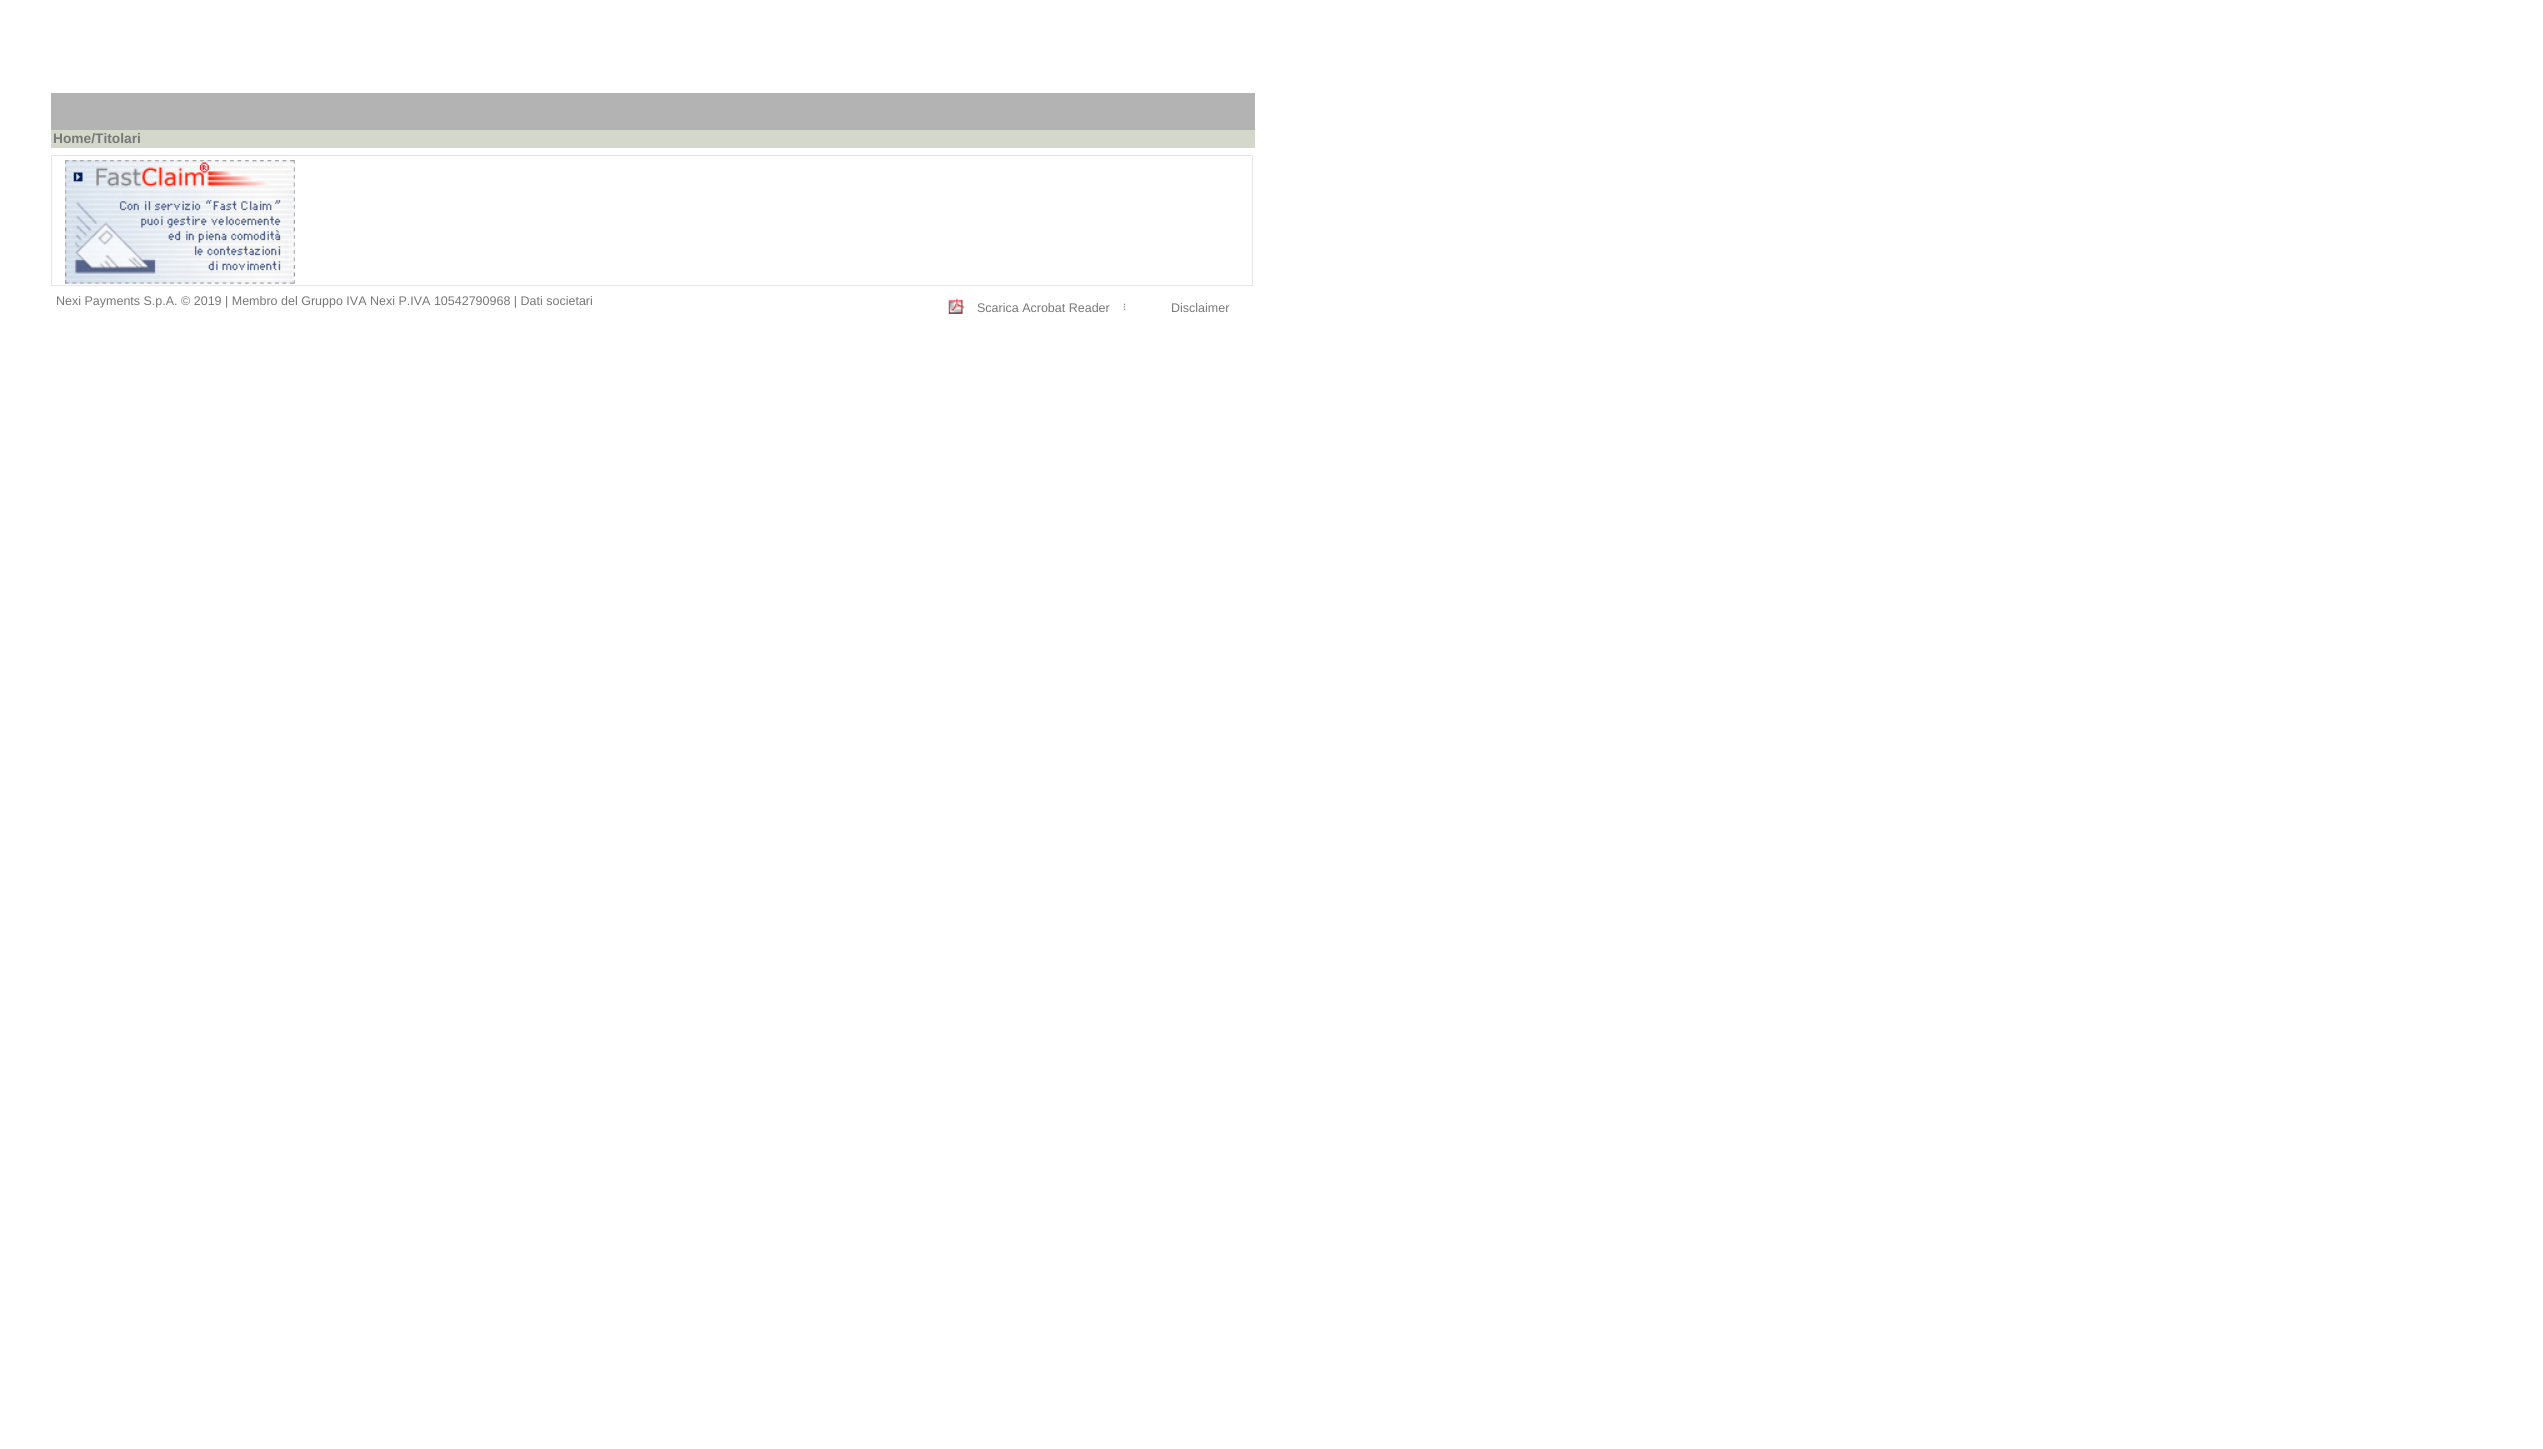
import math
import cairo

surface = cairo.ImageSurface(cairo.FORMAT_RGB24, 2543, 1449)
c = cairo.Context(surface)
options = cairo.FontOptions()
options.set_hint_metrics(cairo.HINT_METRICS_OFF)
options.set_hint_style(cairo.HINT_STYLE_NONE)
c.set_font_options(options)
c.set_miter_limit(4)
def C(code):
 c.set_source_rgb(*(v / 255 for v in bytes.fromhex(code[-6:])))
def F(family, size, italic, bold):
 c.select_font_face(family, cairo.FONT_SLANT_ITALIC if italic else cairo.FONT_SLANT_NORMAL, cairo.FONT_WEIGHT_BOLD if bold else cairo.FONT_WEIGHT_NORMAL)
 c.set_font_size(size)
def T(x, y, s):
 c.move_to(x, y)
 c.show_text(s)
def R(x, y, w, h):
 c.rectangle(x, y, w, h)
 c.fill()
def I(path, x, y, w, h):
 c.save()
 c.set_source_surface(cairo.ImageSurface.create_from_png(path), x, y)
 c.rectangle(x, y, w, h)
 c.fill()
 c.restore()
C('ffffff')
c.paint()
C('d3d8ca')
R(51,130,1204,18)
C('b3b3b3')
R(51,93,1204,37)
F('Liberation Sans',13.75,0,1)
C('777777')
T(53,143,'Home/Titolari')
c.rectangle(51.5,155.5,1201,130)
C('e6e6e6')
c.set_line_width(1)
c.stroke()
I('1.png',65,160,230,124)
F('Liberation Sans',12.5,0,0)
C('777777')
T(56,305,'Nexi Payments S.p.A. © 2019 | Membro del Gruppo IVA Nexi P.IVA 10542790968 | Dati societari')
I('2.png',948,298,16,16)
T(977,312,'Scarica Acrobat Reader')
I('3.png',1123,303,3,8)
T(1171,312,'Disclaimer')
surface.write_to_png('o.png')
